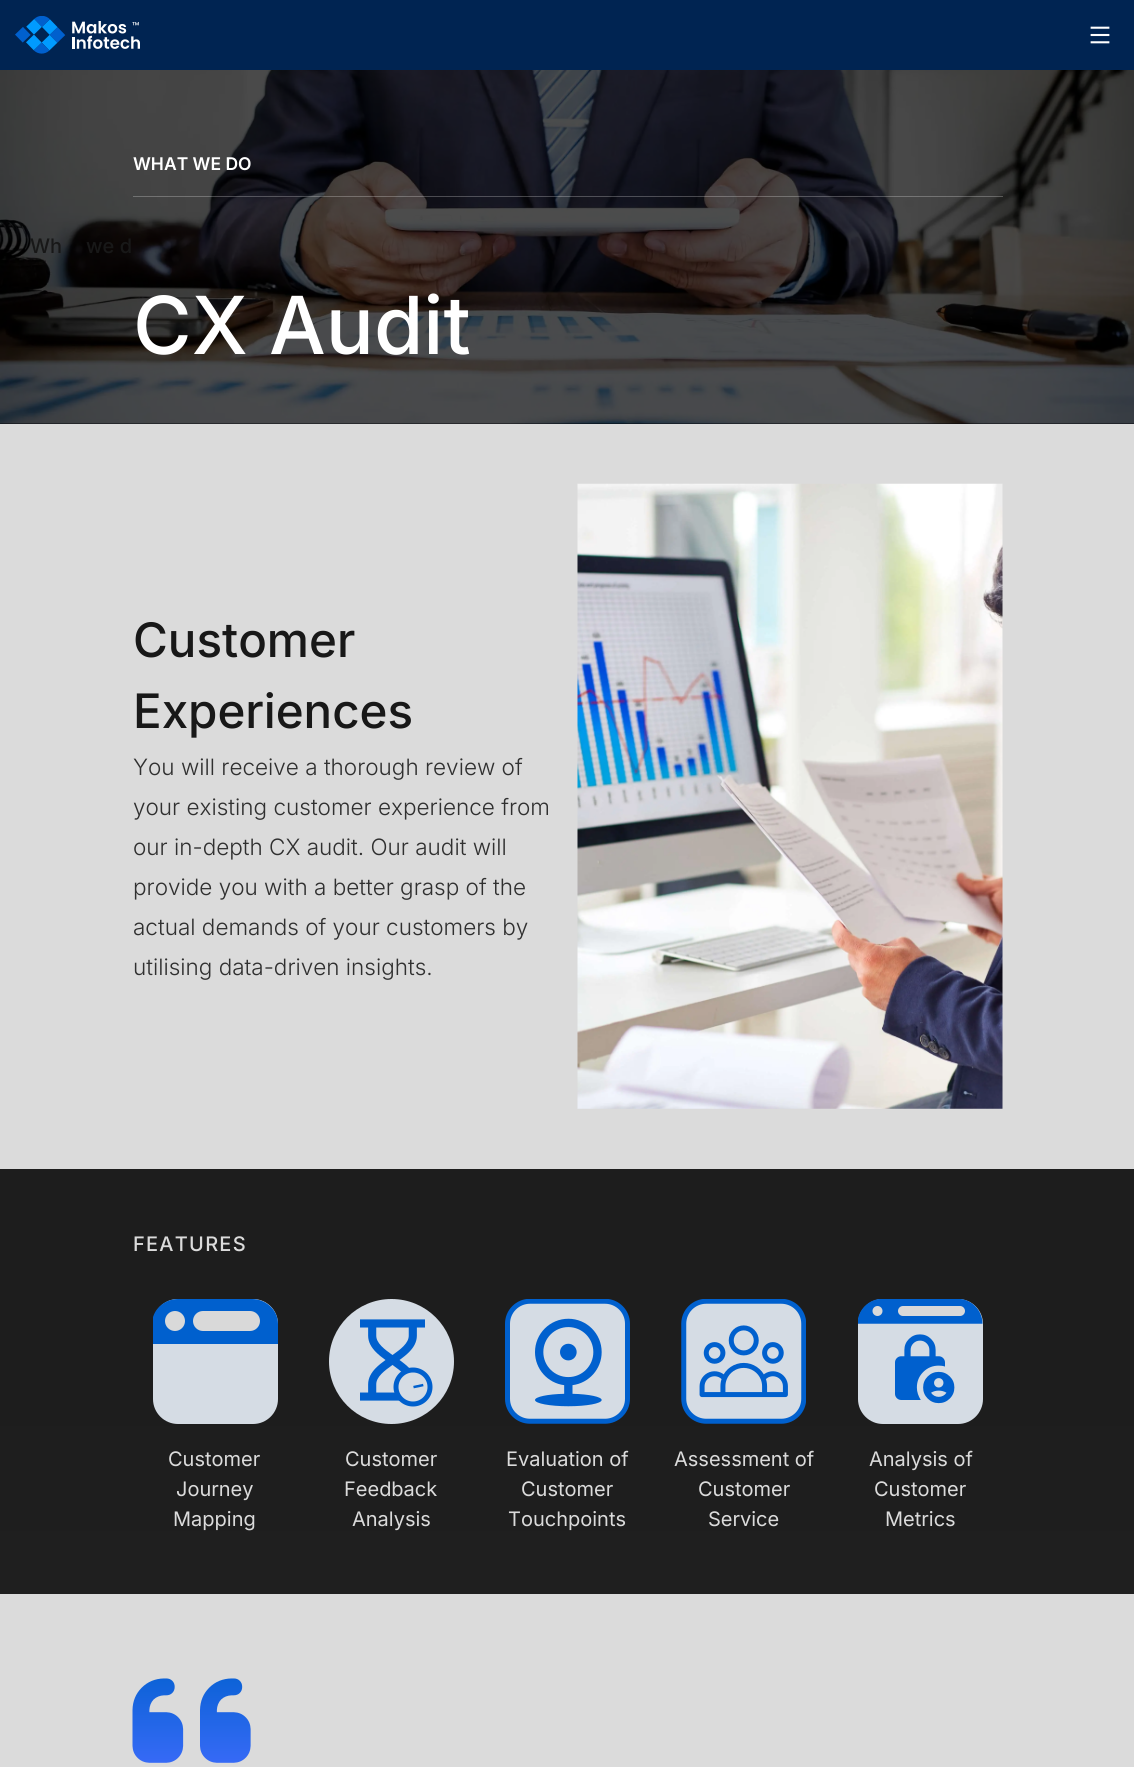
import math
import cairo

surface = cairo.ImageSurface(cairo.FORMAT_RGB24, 1134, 1767)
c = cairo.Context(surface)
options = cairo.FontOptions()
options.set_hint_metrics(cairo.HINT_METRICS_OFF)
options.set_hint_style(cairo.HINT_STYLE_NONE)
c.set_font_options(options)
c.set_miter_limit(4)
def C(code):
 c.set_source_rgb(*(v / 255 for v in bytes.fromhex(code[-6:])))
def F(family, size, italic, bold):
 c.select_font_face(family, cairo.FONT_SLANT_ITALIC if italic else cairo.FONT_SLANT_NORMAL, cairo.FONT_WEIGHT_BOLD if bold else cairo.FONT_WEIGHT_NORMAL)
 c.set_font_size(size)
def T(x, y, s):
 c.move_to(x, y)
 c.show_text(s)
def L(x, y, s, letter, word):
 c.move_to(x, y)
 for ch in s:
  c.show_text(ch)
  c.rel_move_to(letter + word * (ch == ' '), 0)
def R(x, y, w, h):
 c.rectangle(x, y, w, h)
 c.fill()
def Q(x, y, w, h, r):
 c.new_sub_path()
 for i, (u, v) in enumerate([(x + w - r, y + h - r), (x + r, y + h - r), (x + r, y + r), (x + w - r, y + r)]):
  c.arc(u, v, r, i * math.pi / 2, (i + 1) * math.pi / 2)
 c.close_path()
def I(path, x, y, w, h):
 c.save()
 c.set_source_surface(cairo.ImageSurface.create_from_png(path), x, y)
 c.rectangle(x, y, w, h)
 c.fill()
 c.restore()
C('ffffff')
c.paint()
gradient = cairo.LinearGradient(567,0,568,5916)
gradient.add_color_stop_rgba(.3,0.004,0.008,0.024,1)
gradient.add_color_stop_rgba(1,0.004,0.008,0.016,1)
c.set_source(gradient)
R(0,423,1134,1)
C('002452')
R(0,0,1134,70)
I('1.png',15,16,125,38)
I('2.png',1090,26,20,18)
I('3.png',0,70,1134,354)
F('Inter Medium',20,0,0)
C('181818')
T(30,253,'Wh')
T(86,253,'we d')
F('Inter SemiBold',17.5,0,0)
C('ffffff')
T(133,170,'WHAT WE DO')
c.set_source_rgba(1,1,1,0.25)
R(133,196,870,1)
F('Inter Medium',80,0,0)
C('ffffff')
T(133,354,'CX Audit')
C('dbdbdb')
R(0,424,1134,745)
F('Inter Medium',47.5,0,0)
C('181818')
T(133,657,'Customer')
T(133,728,'Experiences')
F('Inter Light',22.5,0,0)
C('303030')
T(133,775,'You will receive a thorough review of')
T(133,815,'your existing customer experience from')
T(133,855,'our in-depth CX audit. Our audit will')
T(133,895,'provide you with a better grasp of the')
T(133,935,'actual demands of your customers by')
T(133,975,'utilising data-driven insights.')
I('4.png',577,483,426,626)
gradient = cairo.LinearGradient(568,1169,568,1594)
gradient.add_color_stop_rgba(.5,0.114,0.114,0.114,1)
gradient.add_color_stop_rgba(1,0.122,0.122,0.122,1)
c.set_source(gradient)
R(0,1169,1134,425)
F('Inter Medium',20,0,0)
C('dbdbdb')
L(133,1251,'FEATURES',1.25,0)
C('d5dce4')
Q(153,1299,125,125,25)
c.fill()
c.save()
c.rectangle(153,1299,125,125)
c.clip()
C('0060ce')
c.new_path()
c.move_to(152,1324)
c.curve_to(152,1310,164,1299,178,1299)
c.line_to(252,1299)
c.curve_to(266,1299,278,1310,278,1324)
c.line_to(278,1344)
c.line_to(152,1344)
c.close_path()
c.fill()
c.restore()
C('d9d9d9')
c.arc(175,1321,10,0,2 * math.pi)
c.fill()
Q(193,1311,67,20,10)
c.fill()
F('Inter',20,0,0)
C('dbdbdb')
T(168,1466,'Customer')
T(176,1496,'Journey')
T(173,1526,'Mapping')
I('5.png',329,1299,125,125)
T(345,1466,'Customer')
T(344,1496,'Feedback')
T(352,1526,'Analysis')
I('6.png',505,1299,125,125)
T(506,1466,'Evaluation of')
T(521,1496,'Customer')
T(508,1526,'Touchpoints')
I('7.png',681,1299,125,125)
T(674,1466,'Assessment of')
T(698,1496,'Customer')
T(708,1526,'Service')
I('8.png',858,1299,125,125)
T(869,1466,'Analysis of')
T(874,1496,'Customer')
T(885,1526,'Metrics')
R(0,1594,1134,173)
I('9.png',132,1678,119,85)
surface.write_to_png('o.png')
